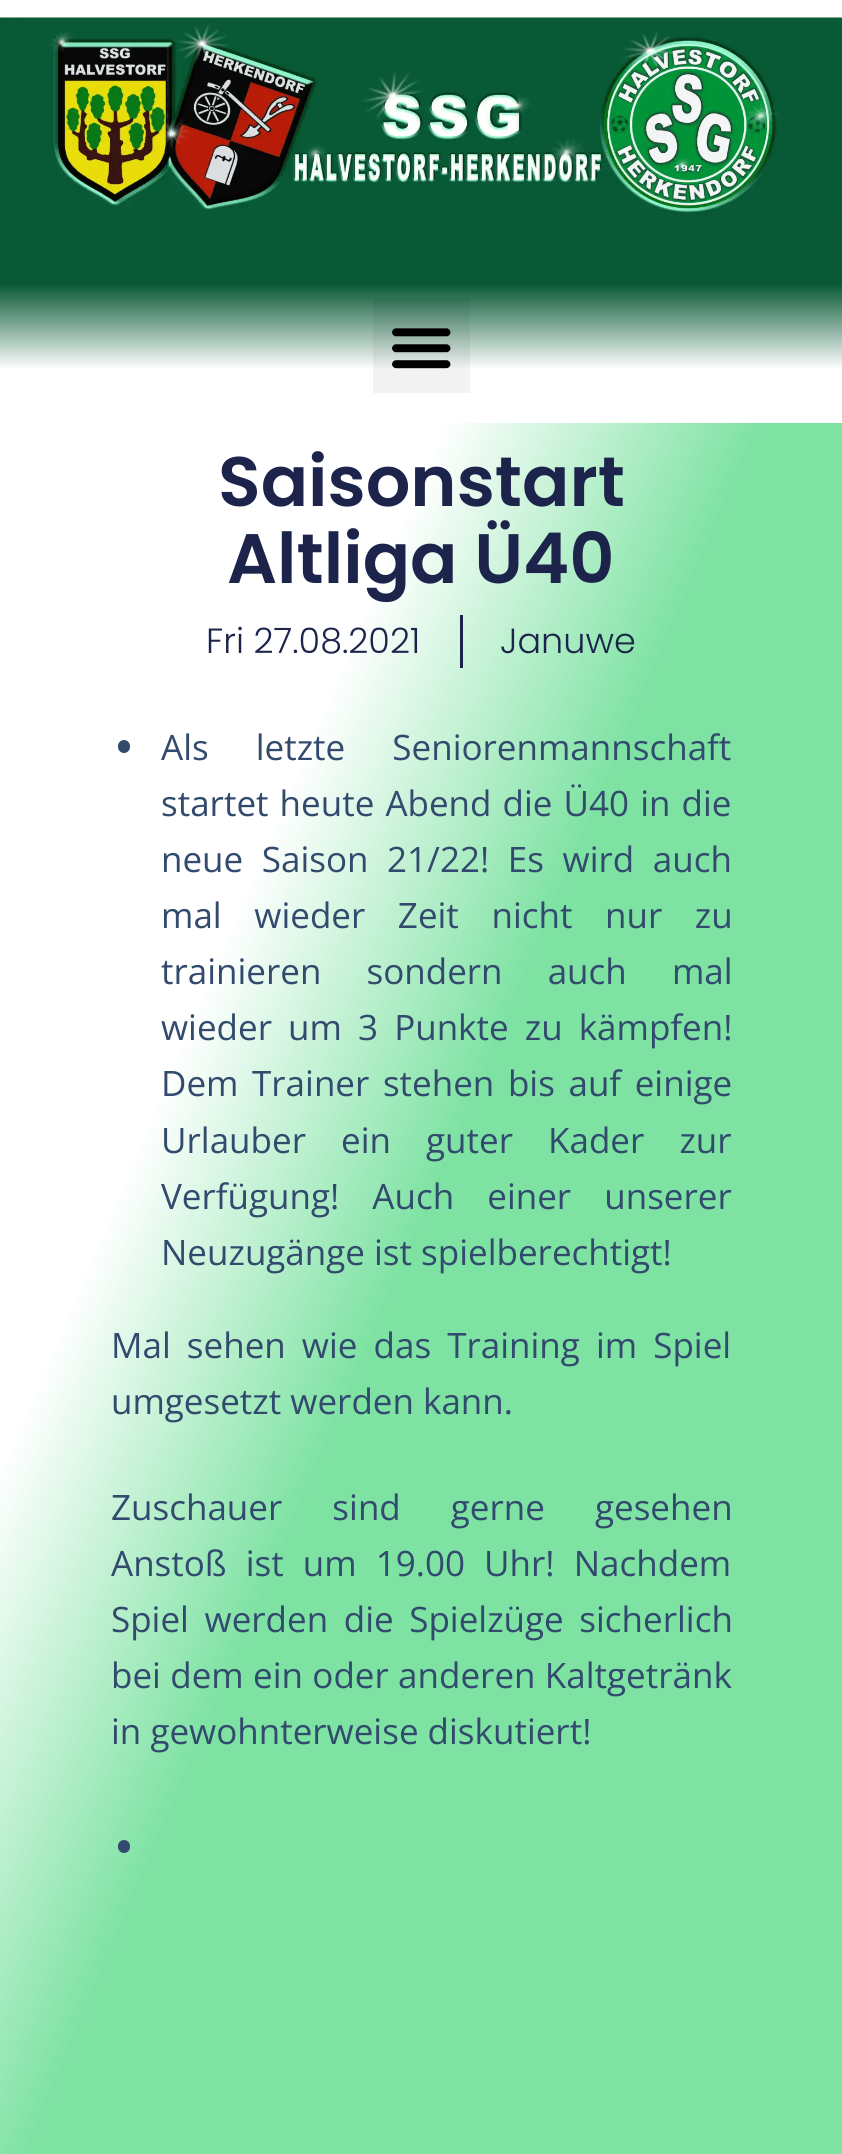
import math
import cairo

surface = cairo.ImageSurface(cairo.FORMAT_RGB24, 842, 2154)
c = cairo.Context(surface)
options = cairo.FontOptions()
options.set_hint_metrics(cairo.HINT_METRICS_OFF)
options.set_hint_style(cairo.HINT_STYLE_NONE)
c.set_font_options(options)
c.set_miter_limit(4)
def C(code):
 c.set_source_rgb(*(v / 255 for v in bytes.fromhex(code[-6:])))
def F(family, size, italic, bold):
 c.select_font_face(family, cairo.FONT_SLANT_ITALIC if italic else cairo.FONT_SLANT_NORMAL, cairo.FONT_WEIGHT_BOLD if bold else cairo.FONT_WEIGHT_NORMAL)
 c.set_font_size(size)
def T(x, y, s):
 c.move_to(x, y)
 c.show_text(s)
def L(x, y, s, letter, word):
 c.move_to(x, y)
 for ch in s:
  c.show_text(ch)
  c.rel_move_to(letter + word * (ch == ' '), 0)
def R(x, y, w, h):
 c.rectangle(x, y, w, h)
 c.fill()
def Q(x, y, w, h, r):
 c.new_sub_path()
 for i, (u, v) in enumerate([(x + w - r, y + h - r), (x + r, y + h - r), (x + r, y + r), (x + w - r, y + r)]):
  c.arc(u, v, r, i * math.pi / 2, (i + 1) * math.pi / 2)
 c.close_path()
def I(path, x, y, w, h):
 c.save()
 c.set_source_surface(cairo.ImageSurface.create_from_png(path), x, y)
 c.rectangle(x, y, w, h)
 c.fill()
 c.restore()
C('ffffff')
c.paint()
gradient = cairo.LinearGradient(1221,1569,-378,891)
gradient.add_color_stop_rgba(.5,0.49,0.886,0.635,1)
gradient.add_color_stop_rgba(.67,1,1,1,1)
c.set_source(gradient)
R(0,423,842,1731)
C('085836')
R(0,214,842,71)
I('1.png',0,17,842,197)
gradient = cairo.LinearGradient(421,285,421,423)
gradient.add_color_stop_rgba(0,0.039,0.353,0.216,1)
gradient.add_color_stop_rgba(.61,1,1,1,1)
c.set_source(gradient)
R(0,285,842,83)
c.set_source_rgba(0,0,0,0.05)
R(373,298,97,95)
I('2.png',392,328,59,41)
F('Poppins SemiBold',70,0,0)
C('1c244b')
T(218,506,'Saisonstart')
T(227,583,'Altliga Ü40')
F('Poppins Light',35,0,0)
T(206,653,'Fri 27.08.2021')
R(460,615,3,53)
T(500,653,'Januwe')
C('324a6d')
Q(118,740,12,13,6)
c.fill()
F('Open Sans',35,0,0)
L(161,760,'Als letzte Seniorenmannschaft',0,38)
L(161,816,'startet heute Abend die Ü40 in die',0,2)
L(161,872,'neue Saison 21/22! Es wird auch',0,9.5)
L(161,928,'mal wieder Zeit nicht nur zu',0,23.5)
L(161,984,'trainieren sondern auch mal',0,36)
L(161,1040,'wieder um 3 Punkte zu kämpfen!',0,7)
L(161,1096,'Dem Trainer stehen bis auf einige',0,4.5)
L(161,1153,'Urlauber ein guter Kader zur',0,26)
L(161,1209,'Verfügung! Auch einer unserer',0,24)
T(161,1265,'Neuzugänge ist spielberechtigt!')
L(111,1358,'Mal sehen wie das Training im Spiel',0,7)
T(111,1414,'umgesetzt werden kann.')
L(111,1520,'Zuschauer sind gerne gesehen',0,41)
L(111,1576,'Anstoß ist um 19.00 Uhr! Nachdem',0,10)
L(111,1632,'Spiel werden die Spielzüge sicherlich',0,6.5)
L(111,1688,'bei dem ein oder anderen Kaltgetränk',0,.25)
T(111,1744,'in gewohnterweise diskutiert!')
Q(118,1840,12,13,6)
c.fill()
surface.write_to_png('o.png')
